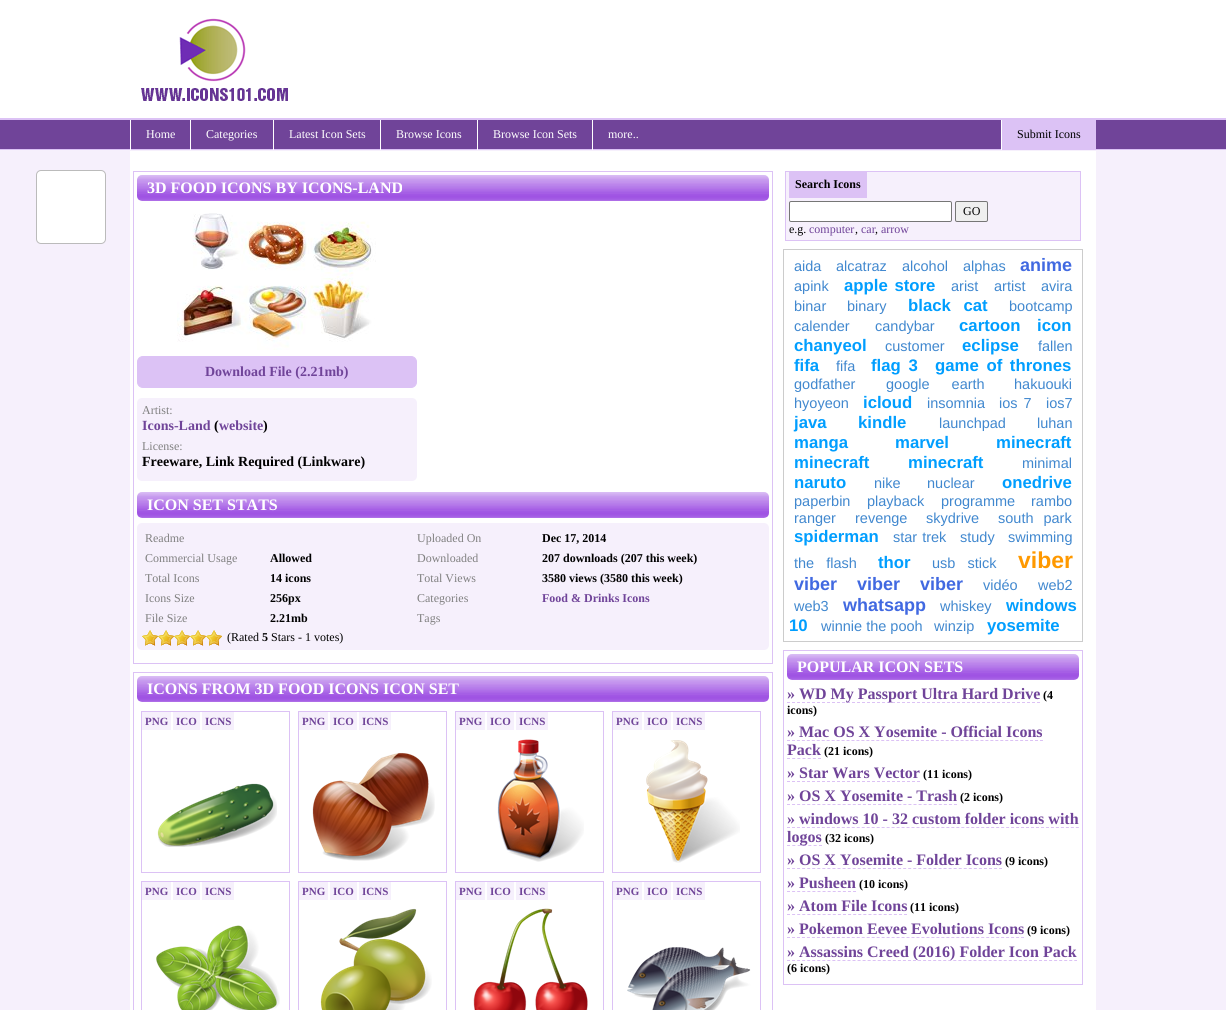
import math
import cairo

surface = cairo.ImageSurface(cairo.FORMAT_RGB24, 1226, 1010)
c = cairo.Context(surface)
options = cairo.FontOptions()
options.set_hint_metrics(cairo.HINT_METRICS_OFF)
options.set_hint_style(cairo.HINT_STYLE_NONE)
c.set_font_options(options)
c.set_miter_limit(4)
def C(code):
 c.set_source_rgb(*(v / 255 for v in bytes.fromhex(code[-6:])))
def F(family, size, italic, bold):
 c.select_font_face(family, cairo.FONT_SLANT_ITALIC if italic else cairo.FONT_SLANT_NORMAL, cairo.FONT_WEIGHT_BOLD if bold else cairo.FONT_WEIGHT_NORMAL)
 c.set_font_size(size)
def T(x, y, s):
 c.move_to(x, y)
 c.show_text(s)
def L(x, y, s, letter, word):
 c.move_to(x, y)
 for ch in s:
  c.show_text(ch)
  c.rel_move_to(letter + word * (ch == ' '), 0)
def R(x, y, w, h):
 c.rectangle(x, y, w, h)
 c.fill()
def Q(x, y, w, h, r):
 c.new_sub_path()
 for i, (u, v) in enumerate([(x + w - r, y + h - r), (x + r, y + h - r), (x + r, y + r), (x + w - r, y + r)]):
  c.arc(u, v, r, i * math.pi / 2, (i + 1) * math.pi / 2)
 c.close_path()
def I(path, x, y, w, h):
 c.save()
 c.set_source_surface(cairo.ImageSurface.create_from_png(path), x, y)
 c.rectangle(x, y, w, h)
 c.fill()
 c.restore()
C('f6f0fc')
c.paint()
I('1.png',0,0,1226,150)
C('ffffff')
Q(36.5,170.5,69,73,4.5)
c.fill_preserve()
C('bbbbbb')
c.set_line_width(1)
c.stroke()
I('2.png',141,18,147,83)
C('ffffff')
R(130,120,1,30)
F('Liberation Serif',12,0,0)
T(146,138,'Home')
R(190,120,1,30)
T(206,138,'Categories')
R(273,120,1,30)
T(289,138,'Latest Icon Sets')
R(380,120,1,30)
T(396,138,'Browse Icons')
R(477,120,1,30)
T(493,138,'Browse Icon Sets')
R(592,120,1,30)
T(608,138,'more..')
C('dcc2f5')
R(1002,120,94,29)
C('ffffff')
R(1001,120,1,30)
C('000000')
T(1017,138,'Submit Icons')
C('ffffff')
R(130,151,966,859)
c.rectangle(133.5,171.5,639,492)
C('dcc2f5')
c.stroke()
I('3.png',137,175,632,26)
F('Liberation Serif',16,0,1)
C('ffffff')
T(147,193,'3D FOOD ICONS BY ICONS-LAND')
I('4.png',177,213,199,137)
C('dcc2f5')
Q(137.5,356.5,279,31,5.5)
c.fill_preserve()
c.stroke()
F('Liberation Serif',14,0,1)
C('704499')
T(205,376,'Download File (2.21mb)')
C('f6f0fc')
Q(137,398,280,83,5)
c.fill()
F('Liberation Serif',12,0,0)
C('808080')
T(142,414,'Artist:')
F('Liberation Serif',14,0,1)
C('704499')
T(142,430,'Icons-Land')
C('000000')
T(214,430,'(')
C('704499')
T(219,430,'website')
C('000000')
T(263,430,')')
F('Liberation Serif',12,0,0)
C('808080')
T(142,450,'License:')
F('Liberation Serif',14,0,1)
C('000000')
T(142,466,'Freeware, Link Required (Linkware)')
I('3.png',137,492,632,26)
F('Liberation Serif',16,0,1)
C('ffffff')
T(147,510,'ICON SET STATS')
C('f6f0fc')
Q(137,523,632,127,5)
c.fill()
F('Liberation Serif',12,0,0)
C('808080')
T(145,542,'Readme')
T(145,562,'Commercial Usage')
F('Liberation Serif',12,0,1)
C('000000')
T(270,562,'Allowed')
F('Liberation Serif',12,0,0)
C('808080')
T(145,582,'Total Icons')
F('Liberation Serif',12,0,1)
C('000000')
T(270,582,'14 icons')
F('Liberation Serif',12,0,0)
C('808080')
T(145,602,'Icons Size')
F('Liberation Serif',12,0,1)
C('000000')
T(270,602,'256px')
F('Liberation Serif',12,0,0)
C('808080')
T(145,622,'File Size')
F('Liberation Serif',12,0,1)
C('000000')
T(270,622,'2.21mb')
F('Liberation Serif',12,0,0)
C('808080')
T(417,542,'Uploaded On')
F('Liberation Serif',12,0,1)
C('000000')
T(542,542,'Dec 17, 2014')
F('Liberation Serif',12,0,0)
C('808080')
T(417,562,'Downloaded')
F('Liberation Serif',12,0,1)
C('000000')
T(542,562,'207 downloads (207 this week)')
F('Liberation Serif',12,0,0)
C('808080')
T(417,582,'Total Views')
F('Liberation Serif',12,0,1)
C('000000')
T(542,582,'3580 views (3580 this week)')
F('Liberation Serif',12,0,0)
C('808080')
T(417,602,'Categories')
F('Liberation Serif',12,0,1)
C('704499')
T(542,602,'Food & Drinks Icons')
F('Liberation Serif',12,0,0)
C('808080')
T(417,622,'Tags')
I('5.png',142,630,16,16)
I('6.png',142,630,16,16)
I('5.png',158,630,16,16)
I('6.png',158,630,16,16)
I('5.png',174,630,16,16)
I('6.png',174,630,16,16)
I('5.png',190,630,16,16)
I('6.png',190,630,16,16)
I('5.png',206,630,16,16)
I('6.png',206,630,16,16)
C('000000')
T(227,641,'(Rated')
F('Liberation Serif',12,0,1)
T(262,641,'5')
F('Liberation Serif',12,0,0)
T(271,641,'Stars - 1 votes)')
c.rectangle(133.5,672.5,639,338)
C('dcc2f5')
c.stroke()
I('3.png',137,676,632,26)
F('Liberation Serif',16,0,1)
C('ffffff')
T(147,694,'ICONS FROM 3D FOOD ICONS ICON SET')
c.rectangle(141.5,711.5,148,161)
C('dcc2f5')
c.stroke()
C('f6f0fc')
R(142,712,29,18)
F('Liberation Serif',11,0,1)
C('704499')
T(145,725,'PNG')
C('f6f0fc')
R(173,712,27,18)
C('704499')
T(176,725,'ICO')
C('f6f0fc')
R(202,712,32,18)
C('704499')
T(205,725,'ICNS')
I('7.png',157,783,120,64)
c.rectangle(298.5,711.5,148,161)
C('dcc2f5')
c.stroke()
C('f6f0fc')
R(299,712,29,18)
C('704499')
T(302,725,'PNG')
C('f6f0fc')
R(330,712,27,18)
C('704499')
T(333,725,'ICO')
C('f6f0fc')
R(359,712,32,18)
C('704499')
T(362,725,'ICNS')
I('8.png',312,752,123,109)
c.rectangle(455.5,711.5,148,161)
C('dcc2f5')
c.stroke()
C('f6f0fc')
R(456,712,29,18)
C('704499')
T(459,725,'PNG')
C('f6f0fc')
R(487,712,27,18)
C('704499')
T(490,725,'ICO')
C('f6f0fc')
R(516,712,32,18)
C('704499')
T(519,725,'ICNS')
I('9.png',497,739,87,123)
c.rectangle(612.5,711.5,148,161)
C('dcc2f5')
c.stroke()
C('f6f0fc')
R(613,712,29,18)
C('704499')
T(616,725,'PNG')
C('f6f0fc')
R(644,712,27,18)
C('704499')
T(647,725,'ICO')
C('f6f0fc')
R(673,712,32,18)
C('704499')
T(676,725,'ICNS')
I('10.png',646,740,94,123)
c.rectangle(141.5,881.5,148,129)
C('dcc2f5')
c.stroke()
C('f6f0fc')
R(142,882,29,18)
C('704499')
T(145,895,'PNG')
C('f6f0fc')
R(173,882,27,18)
C('704499')
T(176,895,'ICO')
C('f6f0fc')
R(202,882,32,18)
C('704499')
T(205,895,'ICNS')
I('11.png',156,925,124,85)
c.rectangle(298.5,881.5,148,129)
C('dcc2f5')
c.stroke()
C('f6f0fc')
R(299,882,29,18)
C('704499')
T(302,895,'PNG')
C('f6f0fc')
R(330,882,27,18)
C('704499')
T(333,895,'ICO')
C('f6f0fc')
R(359,882,32,18)
C('704499')
T(362,895,'ICNS')
I('12.png',320,908,112,102)
c.rectangle(455.5,881.5,148,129)
C('dcc2f5')
c.stroke()
C('f6f0fc')
R(456,882,29,18)
C('704499')
T(459,895,'PNG')
C('f6f0fc')
R(487,882,27,18)
C('704499')
T(490,895,'ICO')
C('f6f0fc')
R(516,882,32,18)
C('704499')
T(519,895,'ICNS')
I('13.png',473,908,115,102)
c.rectangle(612.5,881.5,148,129)
C('dcc2f5')
c.stroke()
C('f6f0fc')
R(613,882,29,18)
C('704499')
T(616,895,'PNG')
C('f6f0fc')
R(644,882,27,18)
C('704499')
T(647,895,'ICO')
C('f6f0fc')
R(673,882,32,18)
C('704499')
T(676,895,'ICNS')
I('14.png',627,947,124,63)
C('f6f0fc')
c.rectangle(785.5,171.5,295,69)
c.fill_preserve()
C('dcc2f5')
c.stroke()
R(789,172,78,26)
F('Liberation Serif',12,0,1)
C('000000')
T(795,188,'Search Icons')
C('ffffff')
Q(789.5,201.5,162,20,1.5)
c.fill_preserve()
C('767676')
c.stroke()
C('efefef')
Q(955.5,201.5,32,20,1.5)
c.fill_preserve()
C('767676')
c.stroke()
F('Liberation Serif',12,0,0)
C('000000')
T(963,215,'GO')
T(789,233,'e.g.')
C('704499')
T(809,233,'computer')
C('000000')
T(855,233,',')
C('704499')
T(861,233,'car')
C('000000')
T(875,233,',')
C('704499')
T(881,233,'arrow')
c.rectangle(783.5,249.5,299,392)
C('cccccc')
c.stroke()
F('Liberation Sans',14.5,0,0)
C('4188cf')
T(794,271,'aida')
T(836,271,'alcatraz')
T(902,271,'alcohol')
T(963,271,'alphas')
F('Liberation Sans',18,0,1)
C('4169e1')
T(1020,271,'anime')
F('Liberation Sans',14.5,0,0)
C('4188cf')
T(794,291,'apink')
F('Liberation Sans',16.75,0,1)
C('009eff')
L(844,291,'apple store',0,2)
F('Liberation Sans',14.5,0,0)
C('4188cf')
T(951,291,'arist')
T(994,291,'artist')
T(1041,291,'avira')
T(794,311,'binar')
T(847,311,'binary')
F('Liberation Sans',16.75,0,1)
C('009eff')
L(908,311,'black cat',0,8)
F('Liberation Sans',14.5,0,0)
C('4188cf')
T(1009,311,'bootcamp')
T(794,331,'calender')
T(875,331,'candybar')
F('Liberation Sans',16.75,0,1)
C('009eff')
L(959,331,'cartoon icon',0,12)
T(794,351,'chanyeol')
F('Liberation Sans',14.5,0,0)
C('4188cf')
T(885,351,'customer')
F('Liberation Sans',16.75,0,1)
C('009eff')
T(962,351,'eclipse')
F('Liberation Sans',14.5,0,0)
C('4188cf')
T(1038,351,'fallen')
F('Liberation Sans',16.75,0,1)
C('009eff')
T(794,371,'fifa')
F('Liberation Sans',14.5,0,0)
C('4188cf')
T(836,371,'fifa')
F('Liberation Sans',16.75,0,1)
C('009eff')
L(871,371,'flag 3',0,3)
L(935,371,'game of thrones',0,3)
F('Liberation Sans',14.5,0,0)
C('4188cf')
T(794,389,'godfather')
L(886,389,'google earth',0,18)
T(1014,389,'hakuouki')
T(794,408,'hyoyeon')
F('Liberation Sans',16.75,0,1)
C('009eff')
T(863,408,'icloud')
F('Liberation Sans',14.5,0,0)
C('4188cf')
T(927,408,'insomnia')
L(999,408,'ios 7',0,2)
T(1046,408,'ios7')
F('Liberation Sans',16.75,0,1)
C('009eff')
T(794,428,'java')
T(858,428,'kindle')
F('Liberation Sans',14.5,0,0)
C('4188cf')
T(939,428,'launchpad')
T(1037,428,'luhan')
F('Liberation Sans',16.75,0,1)
C('009eff')
T(794,448,'manga')
T(895,448,'marvel')
T(996,448,'minecraft')
T(794,468,'minecraft')
T(908,468,'minecraft')
F('Liberation Sans',14.5,0,0)
C('4188cf')
T(1022,468,'minimal')
F('Liberation Sans',16.75,0,1)
C('009eff')
T(794,488,'naruto')
F('Liberation Sans',14.5,0,0)
C('4188cf')
T(874,488,'nike')
T(927,488,'nuclear')
F('Liberation Sans',16.75,0,1)
C('009eff')
T(1002,488,'onedrive')
F('Liberation Sans',14.5,0,0)
C('4188cf')
T(794,506,'paperbin')
T(867,506,'playback')
T(941,506,'programme')
T(1031,506,'rambo')
T(794,523,'ranger')
T(855,523,'revenge')
T(926,523,'skydrive')
L(998,523,'south park',0,6)
F('Liberation Sans',16.75,0,1)
C('009eff')
T(794,542,'spiderman')
F('Liberation Sans',14.5,0,0)
C('4188cf')
L(893,542,'star trek',0,1)
T(960,542,'study')
T(1008,542,'swimming')
L(794,568,'the flash',0,8)
F('Liberation Sans',16.75,0,1)
C('009eff')
T(878,568,'thor')
F('Liberation Sans',14.5,0,0)
C('4188cf')
L(932,568,'usb stick',0,8)
F('Liberation Sans',23,0,1)
C('ff9900')
T(1018,568,'viber')
F('Liberation Sans',18,0,1)
C('4169e1')
T(794,590,'viber')
T(857,590,'viber')
T(920,590,'viber')
F('Liberation Sans',14.5,0,0)
C('4188cf')
T(983,590,'vidéo')
T(1038,590,'web2')
T(794,611,'web3')
F('Liberation Sans',18,0,1)
C('4169e1')
T(843,611,'whatsapp')
F('Liberation Sans',14.5,0,0)
C('4188cf')
T(940,611,'whiskey')
F('Liberation Sans',16.75,0,1)
C('009eff')
T(1006,611,'windows')
T(789,631,'10')
F('Liberation Sans',14.5,0,0)
C('4188cf')
T(821,631,'winnie the pooh')
T(934,631,'winzip')
F('Liberation Sans',16.75,0,1)
C('009eff')
T(987,631,'yosemite')
c.rectangle(783.5,650.5,299,334)
C('dcc2f5')
c.stroke()
I('15.png',787,654,292,26)
F('Liberation Serif',16,0,1)
C('ffffff')
T(797,672,'POPULAR ICON SETS')
c.new_path()
c.move_to(787,702.5)
c.line_to(1040,702.5)
C('dcc2f5')
c.set_dash([3,2])
c.stroke()
C('704499')
T(787,699,'» WD My Passport Ultra Hard Drive')
F('Liberation Serif',12,0,1)
C('000000')
T(1043,699,'(4')
T(787,714,'icons)')
F('Liberation Serif',16,0,1)
C('704499')
T(787,737,'» Mac OS X Yosemite - Official Icons')
c.new_path()
c.move_to(787,740.5)
c.line_to(1043,740.5)
C('dcc2f5')
c.set_dash([3,1.96])
c.stroke()
C('704499')
T(787,755,'Pack')
c.new_path()
c.move_to(787,758.5)
c.line_to(821,758.5)
C('dcc2f5')
c.set_dash([3,2.17])
c.stroke()
F('Liberation Serif',12,0,1)
C('000000')
T(824,755,'(21 icons)')
F('Liberation Serif',16,0,1)
C('704499')
T(787,778,'» Star Wars Vector')
c.new_path()
c.move_to(787,781.5)
c.line_to(920,781.5)
C('dcc2f5')
c.set_dash([3,2])
c.stroke()
F('Liberation Serif',12,0,1)
C('000000')
T(923,778,'(11 icons)')
F('Liberation Serif',16,0,1)
C('704499')
T(787,801,'» OS X Yosemite - Trash')
c.new_path()
c.move_to(787,804.5)
c.line_to(957,804.5)
C('dcc2f5')
c.set_dash([3,2.06])
c.stroke()
F('Liberation Serif',12,0,1)
C('000000')
T(960,801,'(2 icons)')
F('Liberation Serif',16,0,1)
C('704499')
T(787,824,'» windows 10 - 32 custom folder icons with')
c.new_path()
c.move_to(787,827.5)
c.line_to(1079,827.5)
C('dcc2f5')
c.set_dash([3,1.98])
c.stroke()
c.new_path()
c.move_to(787,845.5)
c.line_to(822,845.5)
c.set_dash([3,2.33])
c.stroke()
C('704499')
T(787,842,'logos')
F('Liberation Serif',12,0,1)
C('000000')
T(825,842,'(32 icons)')
F('Liberation Serif',16,0,1)
C('704499')
T(787,865,'» OS X Yosemite - Folder Icons')
c.new_path()
c.move_to(787,868.5)
c.line_to(1002,868.5)
C('dcc2f5')
c.set_dash([3,2.05])
c.stroke()
F('Liberation Serif',12,0,1)
C('000000')
T(1005,865,'(9 icons)')
F('Liberation Serif',16,0,1)
C('704499')
T(787,888,'» Pusheen')
c.new_path()
c.move_to(787,891.5)
c.line_to(856,891.5)
C('dcc2f5')
c.set_dash([3,2.08])
c.stroke()
F('Liberation Serif',12,0,1)
C('000000')
T(859,888,'(10 icons)')
F('Liberation Serif',16,0,1)
C('704499')
T(787,911,'» Atom File Icons')
c.new_path()
c.move_to(787,914.5)
c.line_to(907,914.5)
C('dcc2f5')
c.set_dash([3,2.09])
c.stroke()
F('Liberation Serif',12,0,1)
C('000000')
T(910,911,'(11 icons)')
F('Liberation Serif',16,0,1)
C('704499')
T(787,934,'» Pokemon Eevee Evolutions Icons')
c.new_path()
c.move_to(787,937.5)
c.line_to(1024,937.5)
C('dcc2f5')
c.set_dash([3,1.98])
c.stroke()
F('Liberation Serif',12,0,1)
C('000000')
T(1027,934,'(9 icons)')
c.new_path()
c.move_to(787,960.5)
c.line_to(1077,960.5)
C('dcc2f5')
c.set_dash([3,2.04])
c.stroke()
F('Liberation Serif',16,0,1)
C('704499')
T(787,957,'» Assassins Creed (2016) Folder Icon Pack')
F('Liberation Serif',12,0,1)
C('000000')
T(787,972,'(6 icons)')
surface.write_to_png('o.png')
